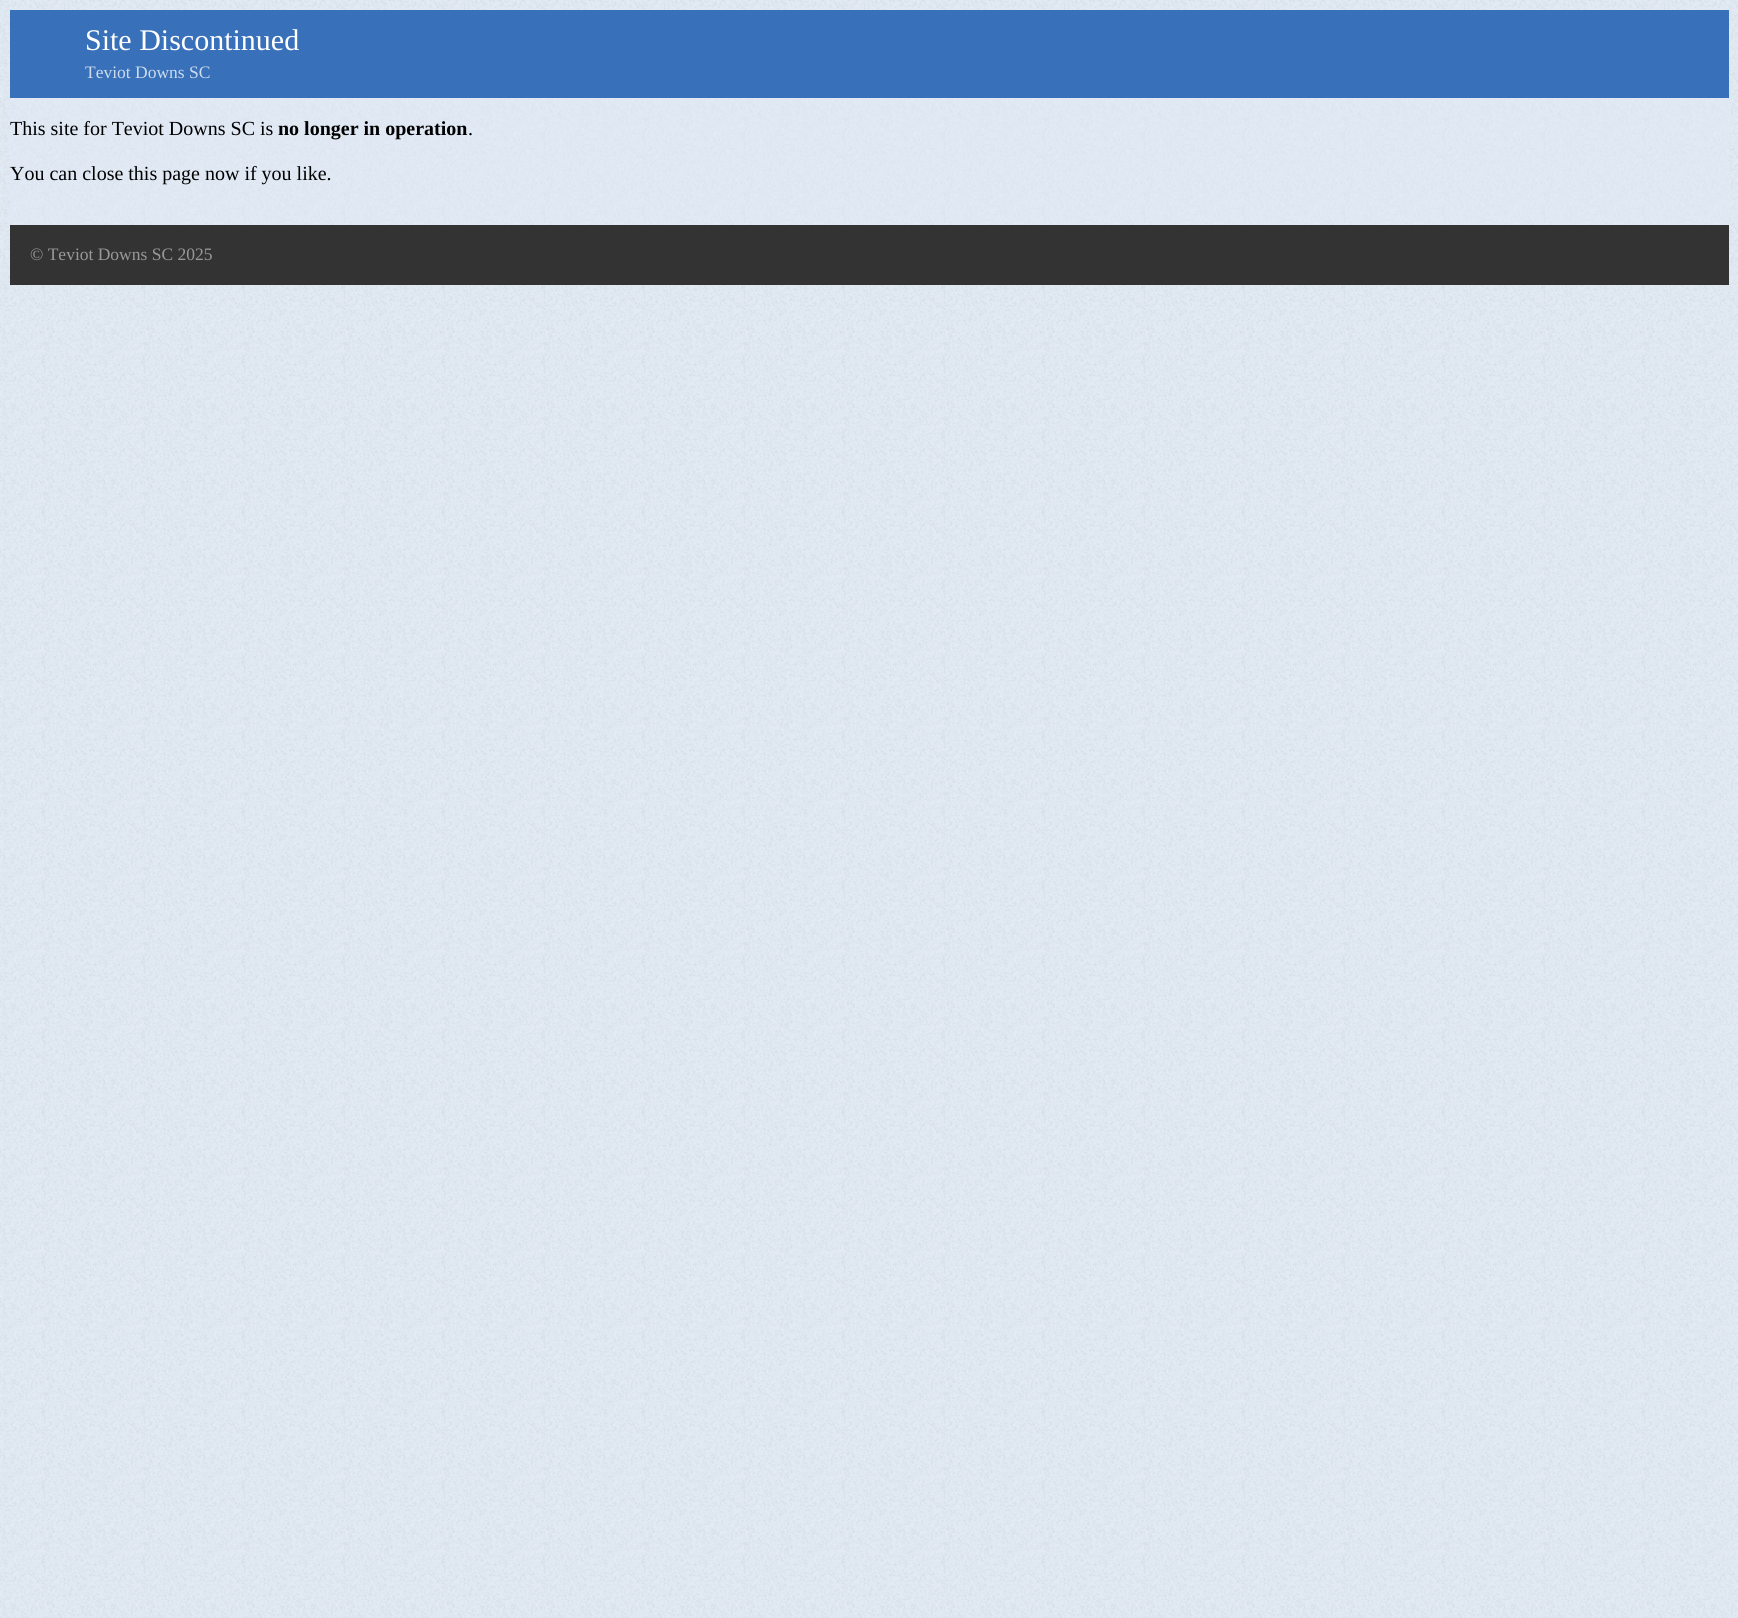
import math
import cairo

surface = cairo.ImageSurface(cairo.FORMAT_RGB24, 1738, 1618)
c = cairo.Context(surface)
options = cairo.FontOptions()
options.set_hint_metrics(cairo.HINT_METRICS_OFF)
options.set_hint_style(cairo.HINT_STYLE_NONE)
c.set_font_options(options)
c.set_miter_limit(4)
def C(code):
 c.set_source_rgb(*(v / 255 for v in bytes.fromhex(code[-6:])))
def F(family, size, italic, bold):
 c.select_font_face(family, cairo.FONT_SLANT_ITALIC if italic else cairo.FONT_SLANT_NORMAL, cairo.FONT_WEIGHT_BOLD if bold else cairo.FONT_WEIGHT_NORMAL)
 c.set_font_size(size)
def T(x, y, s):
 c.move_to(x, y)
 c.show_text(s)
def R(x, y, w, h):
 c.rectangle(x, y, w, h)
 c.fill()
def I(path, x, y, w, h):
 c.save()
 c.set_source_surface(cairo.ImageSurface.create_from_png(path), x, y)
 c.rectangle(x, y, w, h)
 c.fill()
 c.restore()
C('e1eaf5')
c.paint()
I('1.png',0,0,1738,1618)
C('e1eaf5')
R(10,98,1719,127)
I('2.png',0,0,1738,1618)
C('3870ba')
R(10,10,1719,88)
F('Liberation Serif',30,0,0)
C('ffffff')
T(85,50,'Site Discontinued')
F('Liberation Serif',17.5,0,0)
C('cddbee')
T(85,78,'Teviot Downs SC')
F('Liberation Serif',20,0,0)
C('000000')
T(10,135,'This site for Teviot Downs SC is')
F('Liberation Serif',20,0,1)
T(278,135,'no longer in operation')
F('Liberation Serif',20,0,0)
T(468,135,'.')
T(10,180,'You can close this page now if you like.')
C('333333')
R(10,225,1719,60)
F('Liberation Serif',17.5,0,0)
C('999999')
T(30,260,'© Teviot Downs SC 2025')
surface.write_to_png('o.png')
